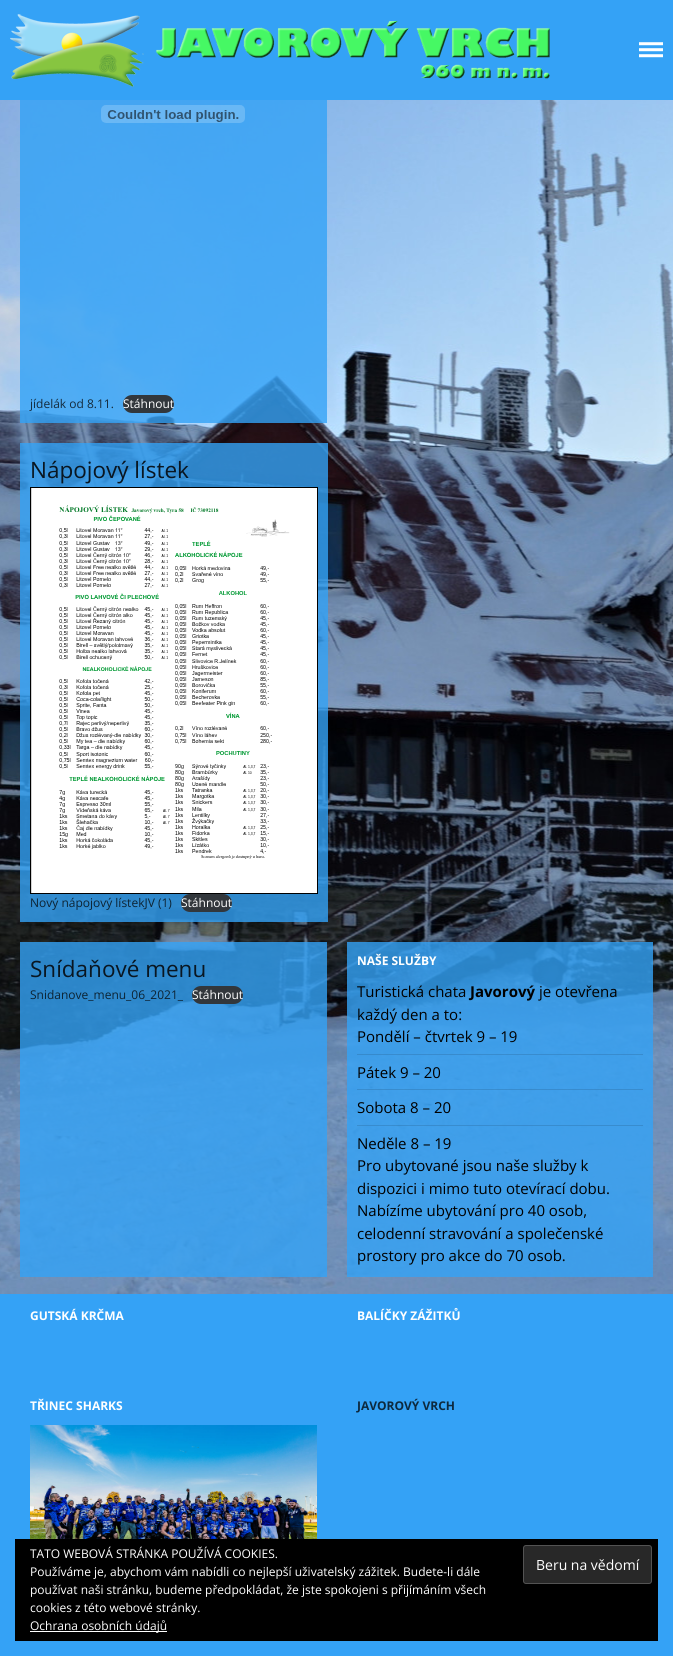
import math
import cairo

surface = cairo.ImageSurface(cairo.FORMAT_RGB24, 673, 1656)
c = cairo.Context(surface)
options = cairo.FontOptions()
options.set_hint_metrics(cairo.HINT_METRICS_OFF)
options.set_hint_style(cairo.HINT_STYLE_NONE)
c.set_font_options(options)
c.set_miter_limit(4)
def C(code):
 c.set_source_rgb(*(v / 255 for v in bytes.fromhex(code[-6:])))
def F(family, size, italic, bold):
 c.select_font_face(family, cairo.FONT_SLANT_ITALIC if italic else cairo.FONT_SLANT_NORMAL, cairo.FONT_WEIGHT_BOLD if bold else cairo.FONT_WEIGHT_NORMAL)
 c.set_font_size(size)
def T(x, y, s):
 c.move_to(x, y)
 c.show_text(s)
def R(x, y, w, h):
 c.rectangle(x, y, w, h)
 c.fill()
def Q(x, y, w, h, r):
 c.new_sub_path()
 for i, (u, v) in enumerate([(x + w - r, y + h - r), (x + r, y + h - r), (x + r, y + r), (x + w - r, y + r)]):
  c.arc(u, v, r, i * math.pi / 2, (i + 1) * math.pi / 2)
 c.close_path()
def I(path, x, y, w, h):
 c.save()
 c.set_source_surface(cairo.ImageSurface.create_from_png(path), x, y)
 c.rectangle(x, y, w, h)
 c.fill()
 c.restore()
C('34a2f6')
c.paint()
I('1.png',10,14,540,73)
I('2.png',639,42,24,16)
I('3.png',0,100,673,1194)
c.set_source_rgba(0.204,0.635,0.965,0.8)
R(20,100,307,323)
I('4.png',101,105,144,18)
F('Open Sans',12,0,0)
C('142b3d')
T(30,408,'jídelák od 8.11.')
C('32373c')
Q(123,395,51,18,9)
c.fill()
C('ffffff')
T(123,408,'Stáhnout')
c.set_source_rgba(0.204,0.635,0.965,0.8)
R(20,443,308,479)
F('Open Sans',22.5,0,0)
C('091621')
T(30,478,'Nápojový lístek')
C('d3d3d3')
R(31,488,1,405)
c.rectangle(30.5,487.5,287,406)
C('000000')
c.set_line_width(1)
c.stroke()
C('ffffff')
R(32,488,285,405)
I('5.png',59,505,231,354)
F('Open Sans',12,0,0)
C('0c2333')
T(30,907,'Nový nápojový lístekJV (1)')
C('32373c')
Q(181,894,51,18,9)
c.fill()
C('ffffff')
T(181,907,'Stáhnout')
c.set_source_rgba(0.204,0.635,0.965,0.8)
R(20,942,307,335)
F('Open Sans',22.5,0,0)
C('091621')
T(30,977,'Snídaňové menu')
F('Open Sans',12,0,0)
C('0c2333')
T(30,999,'Snidanove_menu_06_2021_')
C('32373c')
Q(192,986,51,18,9)
c.fill()
C('ffffff')
T(192,999,'Stáhnout')
c.set_source_rgba(0.204,0.635,0.965,0.8)
R(347,942,306,335)
F('Open Sans',12,0,1)
C('ffffff')
T(357,965,'NAŠE SLUŽBY')
F('Open Sans',15,0,0)
C('000000')
T(357,997,'Turistická chata')
F('Open Sans',15,0,1)
T(470,997,'Javorový')
F('Open Sans',15,0,0)
T(539,997,'je otevřena')
T(357,1020,'každý den a to:')
c.set_source_rgba(0,0,0,0.12)
R(357,1054,286,1)
C('000000')
T(357,1042,'Pondělí – čtvrtek 9 – 19')
c.set_source_rgba(0,0,0,0.12)
R(357,1089,286,1)
C('000000')
T(357,1078,'Pátek 9 – 20')
c.set_source_rgba(0,0,0,0.12)
R(357,1125,286,1)
C('000000')
T(357,1113,'Sobota 8 – 20')
T(357,1149,'Neděle 8 – 19')
T(357,1171,'Pro ubytované jsou naše služby k')
T(357,1194,'dispozici i mimo tuto otevírací dobu.')
T(357,1216,'Nabízíme ubytování pro 40 osob,')
T(357,1239,'celodenní stravování a společenské')
T(357,1261,'prostory pro akce do 70 osob.')
F('Open Sans',12,0,1)
C('ffffff')
T(30,1320,'GUTSKÁ KRČMA')
T(357,1320,'BALÍČKY ZÁŽITKŮ')
T(30,1410,'TŘINEC SHARKS')
I('6.png',30,1425,287,114)
C('0d293e')
T(357,1410,'JAVOROVÝ VRCH')
C('000000')
R(15,1539,643,102)
F('Open Sans',12,0,0)
C('ffffff')
T(30,1558,'TATO WEBOVÁ STRÁNKA POUŽÍVÁ COOKIES.')
T(30,1576,'Používáme je, abychom vám nabídli co nejlepší uživatelský zážitek. Budete-li dále')
C('282828')
Q(523.5,1545.5,128,38,2.5)
c.fill_preserve()
C('535353')
c.stroke()
F('Open Sans',14,0,0)
C('ffffff')
T(536,1570,'Beru na vědomí')
F('Open Sans',12,0,0)
T(30,1594,'používat naši stránku, budeme předpokládat, že jste spokojeni s přijímáním všech')
T(30,1612,'cookies z této webové stránky.')
R(30,1631,137,1)
T(30,1630,'Ochrana osobních údajů')
surface.write_to_png('o.png')
